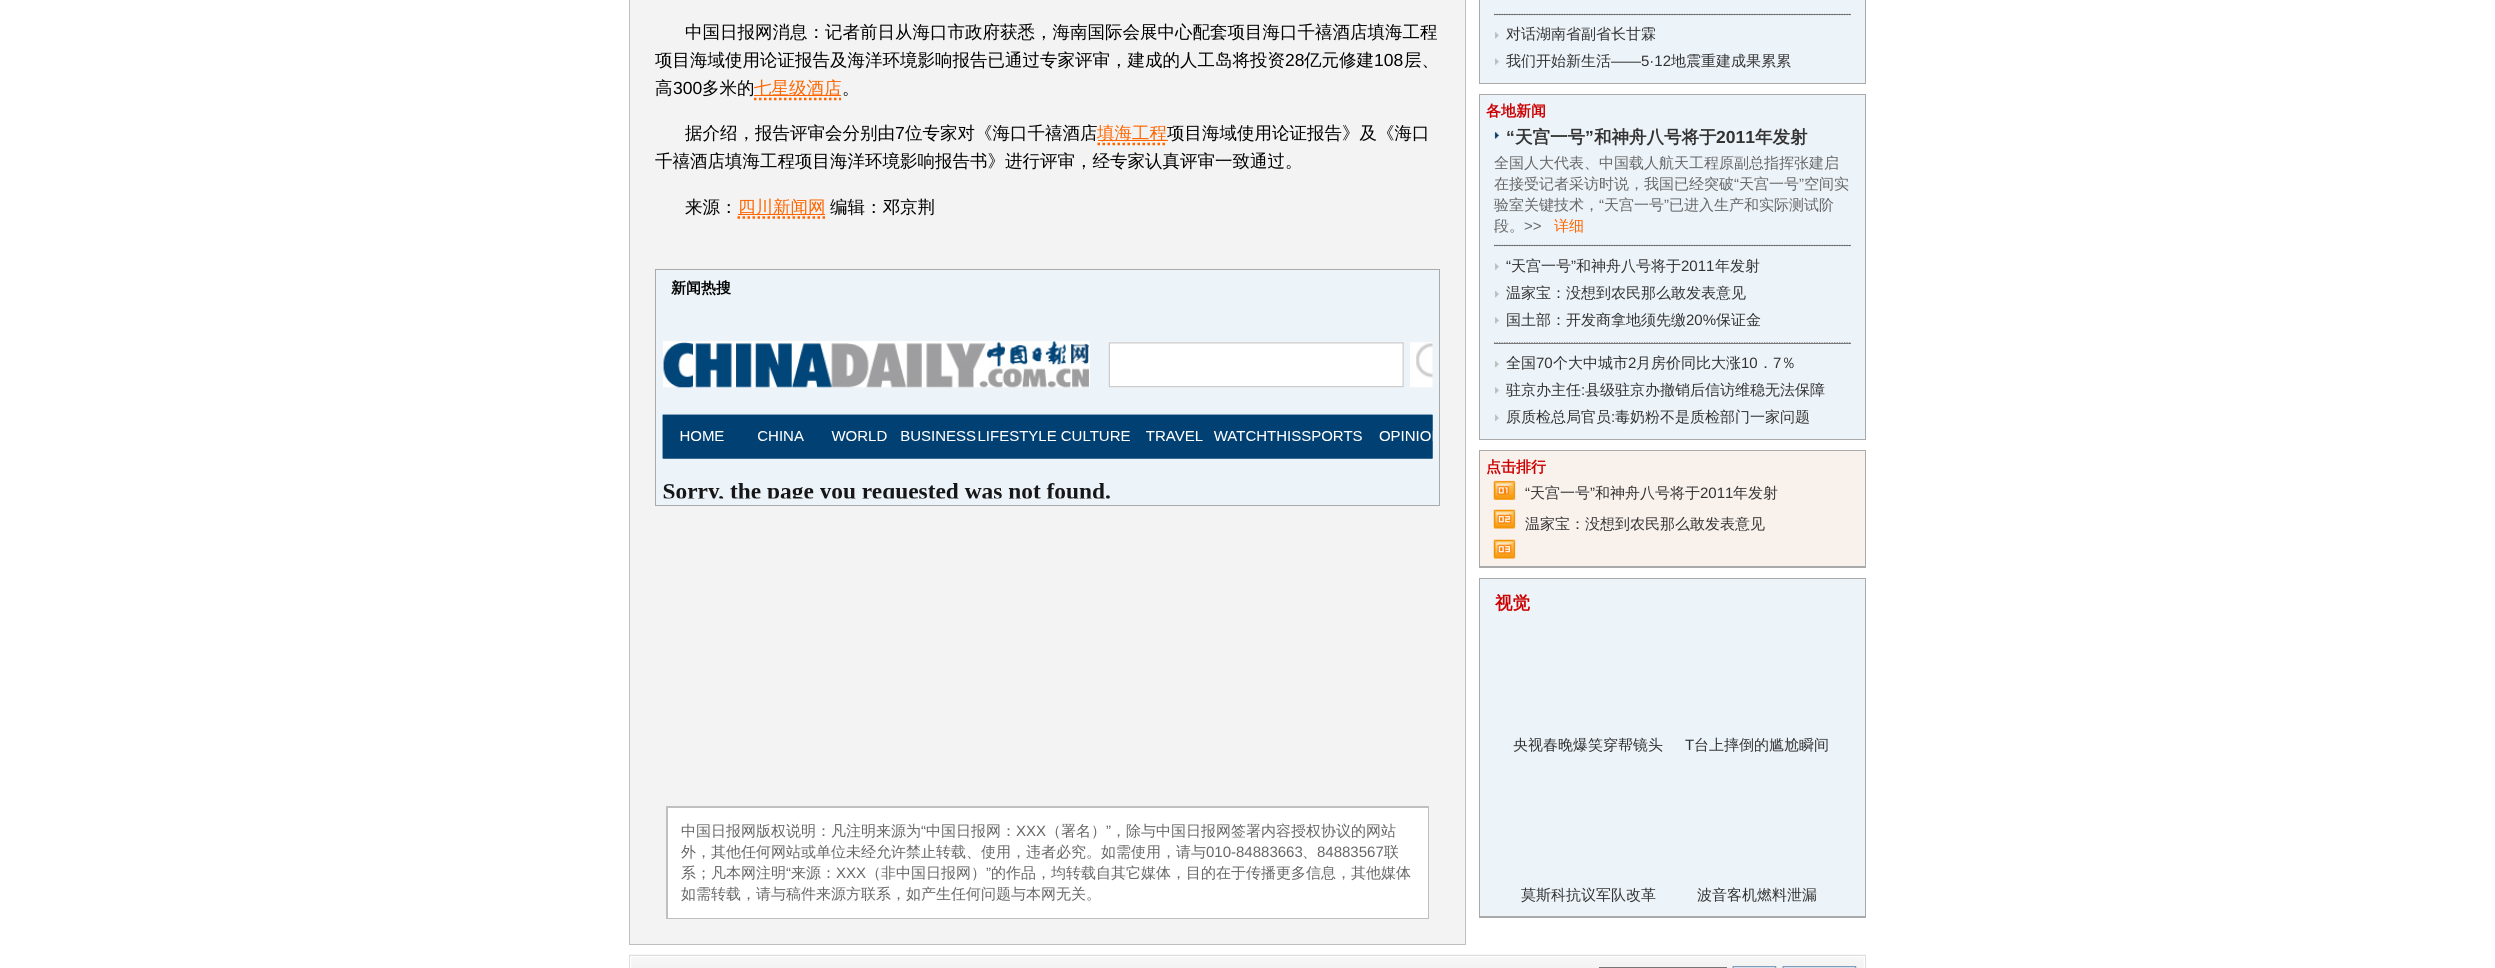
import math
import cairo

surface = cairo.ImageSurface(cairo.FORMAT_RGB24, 2495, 968)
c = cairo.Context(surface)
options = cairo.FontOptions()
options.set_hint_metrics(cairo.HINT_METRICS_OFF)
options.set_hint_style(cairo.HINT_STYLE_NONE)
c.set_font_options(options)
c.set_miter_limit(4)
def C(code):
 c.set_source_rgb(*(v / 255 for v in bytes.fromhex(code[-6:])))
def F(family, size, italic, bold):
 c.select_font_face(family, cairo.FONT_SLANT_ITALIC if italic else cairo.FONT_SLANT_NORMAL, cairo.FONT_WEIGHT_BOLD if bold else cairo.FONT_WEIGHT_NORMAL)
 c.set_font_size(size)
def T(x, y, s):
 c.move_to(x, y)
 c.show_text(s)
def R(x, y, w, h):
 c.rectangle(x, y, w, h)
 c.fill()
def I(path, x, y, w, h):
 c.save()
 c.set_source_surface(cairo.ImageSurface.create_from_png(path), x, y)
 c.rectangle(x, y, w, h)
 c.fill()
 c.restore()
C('ffffff')
c.paint()
C('bfbfbf')
R(629,0,837,945)
C('f3f3f3')
R(630,0,835,944)
F('WenQuanYi Zen Hei Medium',17.5,0,0)
C('000000')
T(685,38,'中国日报网消息：记者前日从海口市政府获悉，海南国际会展中心配套项目海口千禧酒店填海工程')
T(655,66,'项目海域使用论证报告及海洋环境影响报告已通过专家评审，建成的人工岛将投资')
F('Liberation Sans',17.5,0,0)
T(1285,66,'28')
F('WenQuanYi Zen Hei Medium',17.5,0,0)
T(1304,66,'亿元修建')
F('Liberation Sans',17.5,0,0)
T(1374,66,'108')
F('WenQuanYi Zen Hei Medium',17.5,0,0)
T(1404,66,'层、')
T(655,94,'高')
F('Liberation Sans',17.5,0,0)
T(673,94,'300')
F('WenQuanYi Zen Hei Medium',17.5,0,0)
T(702,94,'多米的')
C('ff6600')
R(754,95,87,1)
T(754,94,'七星级酒店')
c.new_path()
c.move_to(754,99)
c.line_to(841,99)
c.set_line_width(2.5)
c.set_dash([2.5,2.5])
c.stroke()
C('000000')
T(842,94,'。')
T(685,139,'据介绍，报告评审会分别由')
F('Liberation Sans',17.5,0,0)
T(895,139,'7')
F('WenQuanYi Zen Hei Medium',17.5,0,0)
T(905,139,'位专家对《海口千禧酒店')
C('ff6600')
R(1098,140,70,1)
T(1097,139,'填海工程')
c.new_path()
c.move_to(1097.5,144)
c.line_to(1167.5,144)
c.stroke()
C('000000')
T(1167,139,'项目海域使用论证报告》及《海口')
T(655,167,'千禧酒店填海工程项目海洋环境影响报告书》进行评审，经专家认真评审一致通过。')
T(685,213,'来源：')
C('ff6600')
R(738,214,87,1)
T(738,213,'四川新闻网')
c.new_path()
c.move_to(737.5,217.5)
c.line_to(825,217.5)
c.stroke()
C('000000')
T(830,213,'编辑：邓京荆')
C('aaaaaa')
R(655,269,785,237)
C('ecf3f9')
R(656,270,783,235)
F('WenQuanYi Zen Hei',15,0,1)
C('000000')
T(671,293,'新闻热搜')
I('1.png',662,341,771,158)
C('bfbfbf')
R(666,806,763,113)
C('ffffff')
R(668,808,760,110)
F('WenQuanYi Zen Hei Medium',15,0,0)
C('666666')
T(681,836,'中国日报网版权说明：凡注明来源为')
F('Liberation Sans',15,0,0)
T(921,836,'“')
F('WenQuanYi Zen Hei Medium',15,0,0)
T(926,836,'中国日报网：')
F('Liberation Sans',15,0,0)
T(1016,836,'XXX')
F('WenQuanYi Zen Hei Medium',15,0,0)
T(1046,836,'（署名）')
F('Liberation Sans',15,0,0)
T(1106,836,'”')
F('WenQuanYi Zen Hei Medium',15,0,0)
T(1111,836,'，除与中国日报网签署内容授权协议的网站')
T(681,857,'外，其他任何网站或单位未经允许禁止转载、使用，违者必究。如需使用，请与')
F('Liberation Sans',15,0,0)
T(1206,857,'010-84883663')
F('WenQuanYi Zen Hei Medium',15,0,0)
T(1302,857,'、')
F('Liberation Sans',15,0,0)
T(1317,857,'84883567')
F('WenQuanYi Zen Hei Medium',15,0,0)
T(1384,857,'联')
T(681,878,'系；凡本网注明')
F('Liberation Sans',15,0,0)
T(786,878,'“')
F('WenQuanYi Zen Hei Medium',15,0,0)
T(791,878,'来源：')
F('Liberation Sans',15,0,0)
T(836,878,'XXX')
F('WenQuanYi Zen Hei Medium',15,0,0)
T(866,878,'（非中国日报网）')
F('Liberation Sans',15,0,0)
T(986,878,'”')
F('WenQuanYi Zen Hei Medium',15,0,0)
T(991,878,'的作品，均转载自其它媒体，目的在于传播更多信息，其他媒体')
T(681,899,'如需转载，请与稿件来源方联系，如产生任何问题与本网无关。')
C('aaaaaa')
R(1479,0,387,84)
C('ecf3f9')
R(1480,0,385,83)
C('808080')
R(1494,14,357,1)
c.new_path()
c.move_to(1494,14.5)
c.line_to(1851,14.5)
C('666666')
c.set_line_width(1.2)
c.set_dash([1.25,1.25])
c.stroke()
I('2.png',1495,32,4,7)
C('333333')
T(1506,39,'对话湖南省副省长甘霖')
I('3.png',1495,58,4,7)
T(1506,66,'我们开始新生活')
F('Liberation Sans',15,0,0)
T(1611,66,'——5·12')
F('WenQuanYi Zen Hei Medium',15,0,0)
T(1671,66,'地震重建成果累累')
C('aaaaaa')
R(1479,94,387,346)
C('ecf3f9')
R(1480,95,385,344)
F('WenQuanYi Zen Hei',15,0,1)
C('cc0000')
T(1486,116,'各地新闻')
I('4.png',1494,132,5,7)
F('Liberation Sans',17.5,0,1)
C('333333')
T(1506,143,'“')
F('WenQuanYi Zen Hei',17.5,0,1)
T(1515,143,'天宫一号')
F('Liberation Sans',17.5,0,1)
T(1585,143,'”')
F('WenQuanYi Zen Hei',17.5,0,1)
T(1594,143,'和神舟八号将于')
F('Liberation Sans',17.5,0,1)
T(1716,143,'2011')
F('WenQuanYi Zen Hei',17.5,0,1)
T(1755,143,'年发射')
F('WenQuanYi Zen Hei Medium',15,0,0)
C('666666')
T(1494,168,'全国人大代表、中国载人航天工程原副总指挥张建启')
T(1494,189,'在接受记者采访时说，我国已经突破')
F('Liberation Sans',15,0,0)
T(1734,189,'“')
F('WenQuanYi Zen Hei Medium',15,0,0)
T(1739,189,'天宫一号')
F('Liberation Sans',15,0,0)
T(1799,189,'”')
F('WenQuanYi Zen Hei Medium',15,0,0)
T(1804,189,'空间实')
T(1494,210,'验室关键技术，')
F('Liberation Sans',15,0,0)
T(1599,210,'“')
F('WenQuanYi Zen Hei Medium',15,0,0)
T(1604,210,'天宫一号')
F('Liberation Sans',15,0,0)
T(1664,210,'”')
F('WenQuanYi Zen Hei Medium',15,0,0)
T(1669,210,'已进入生产和实际测试阶')
T(1494,231,'段。')
F('Liberation Sans',15,0,0)
T(1524,231,'>>')
F('WenQuanYi Zen Hei Medium',15,0,0)
C('ff6600')
T(1554,231,'详细')
C('808080')
R(1494,245,357,1)
c.new_path()
c.move_to(1494,245.5)
c.line_to(1851,245.5)
C('666666')
c.stroke()
I('3.png',1495,263,4,7)
F('Liberation Sans',15,0,0)
C('333333')
T(1506,271,'“')
F('WenQuanYi Zen Hei Medium',15,0,0)
T(1511,271,'天宫一号')
F('Liberation Sans',15,0,0)
T(1571,271,'”')
F('WenQuanYi Zen Hei Medium',15,0,0)
T(1576,271,'和神舟八号将于')
F('Liberation Sans',15,0,0)
T(1681,271,'2011')
F('WenQuanYi Zen Hei Medium',15,0,0)
T(1715,271,'年发射')
I('5.png',1495,291,4,7)
T(1506,298,'温家宝：没想到农民那么敢发表意见')
I('2.png',1495,317,4,7)
T(1506,325,'国土部：开发商拿地须先缴')
F('Liberation Sans',15,0,0)
T(1686,325,'20%')
F('WenQuanYi Zen Hei Medium',15,0,0)
T(1716,325,'保证金')
C('808080')
R(1494,343,357,1)
c.new_path()
c.move_to(1494,343)
c.line_to(1851,343)
C('666666')
c.stroke()
I('5.png',1495,361,4,7)
C('333333')
T(1506,368,'全国')
F('Liberation Sans',15,0,0)
T(1536,368,'70')
F('WenQuanYi Zen Hei Medium',15,0,0)
T(1553,368,'个大中城市')
F('Liberation Sans',15,0,0)
T(1628,368,'2')
F('WenQuanYi Zen Hei Medium',15,0,0)
T(1636,368,'月房价同比大涨')
F('Liberation Sans',15,0,0)
T(1741,368,'10')
F('WenQuanYi Zen Hei Medium',15,0,0)
T(1758,368,'．')
F('Liberation Sans',15,0,0)
T(1773,368,'7')
F('WenQuanYi Zen Hei Medium',15,0,0)
T(1781,368,'％')
I('2.png',1495,387,4,7)
T(1506,395,'驻京办主任')
F('Liberation Sans',15,0,0)
T(1581,395,':')
F('WenQuanYi Zen Hei Medium',15,0,0)
T(1585,395,'县级驻京办撤销后信访维稳无法保障')
I('6.png',1495,414,4,7)
T(1506,422,'原质检总局官员')
F('Liberation Sans',15,0,0)
T(1611,422,':')
F('WenQuanYi Zen Hei Medium',15,0,0)
T(1615,422,'毒奶粉不是质检部门一家问题')
C('aaaaaa')
R(1479,450,387,118)
C('f9f1ec')
R(1480,451,385,115)
F('WenQuanYi Zen Hei',15,0,1)
C('cc0000')
T(1486,472,'点击排行')
I('7.png',1493,480,23,79)
F('Liberation Sans',15,0,0)
C('333333')
T(1525,498,'“')
F('WenQuanYi Zen Hei Medium',15,0,0)
T(1530,498,'天宫一号')
F('Liberation Sans',15,0,0)
T(1590,498,'”')
F('WenQuanYi Zen Hei Medium',15,0,0)
T(1595,498,'和神舟八号将于')
F('Liberation Sans',15,0,0)
T(1700,498,'2011')
F('WenQuanYi Zen Hei Medium',15,0,0)
T(1733,498,'年发射')
T(1525,529,'温家宝：没想到农民那么敢发表意见')
C('aaaaaa')
R(1479,578,387,340)
C('ecf3f9')
R(1480,579,385,337)
F('WenQuanYi Zen Hei',17.5,0,1)
C('cc0000')
T(1495,609,'视觉')
F('WenQuanYi Zen Hei Medium',15,0,0)
C('333333')
T(1513,750,'央视春晚爆笑穿帮镜头')
F('Liberation Sans',15,0,0)
T(1685,750,'T')
F('WenQuanYi Zen Hei Medium',15,0,0)
T(1694,750,'台上摔倒的尴尬瞬间')
T(1521,900,'莫斯科抗议军队改革')
T(1697,900,'波音客机燃料泄漏')
I('8.png',629,954,1237,14)
surface.write_to_png('o.png')
